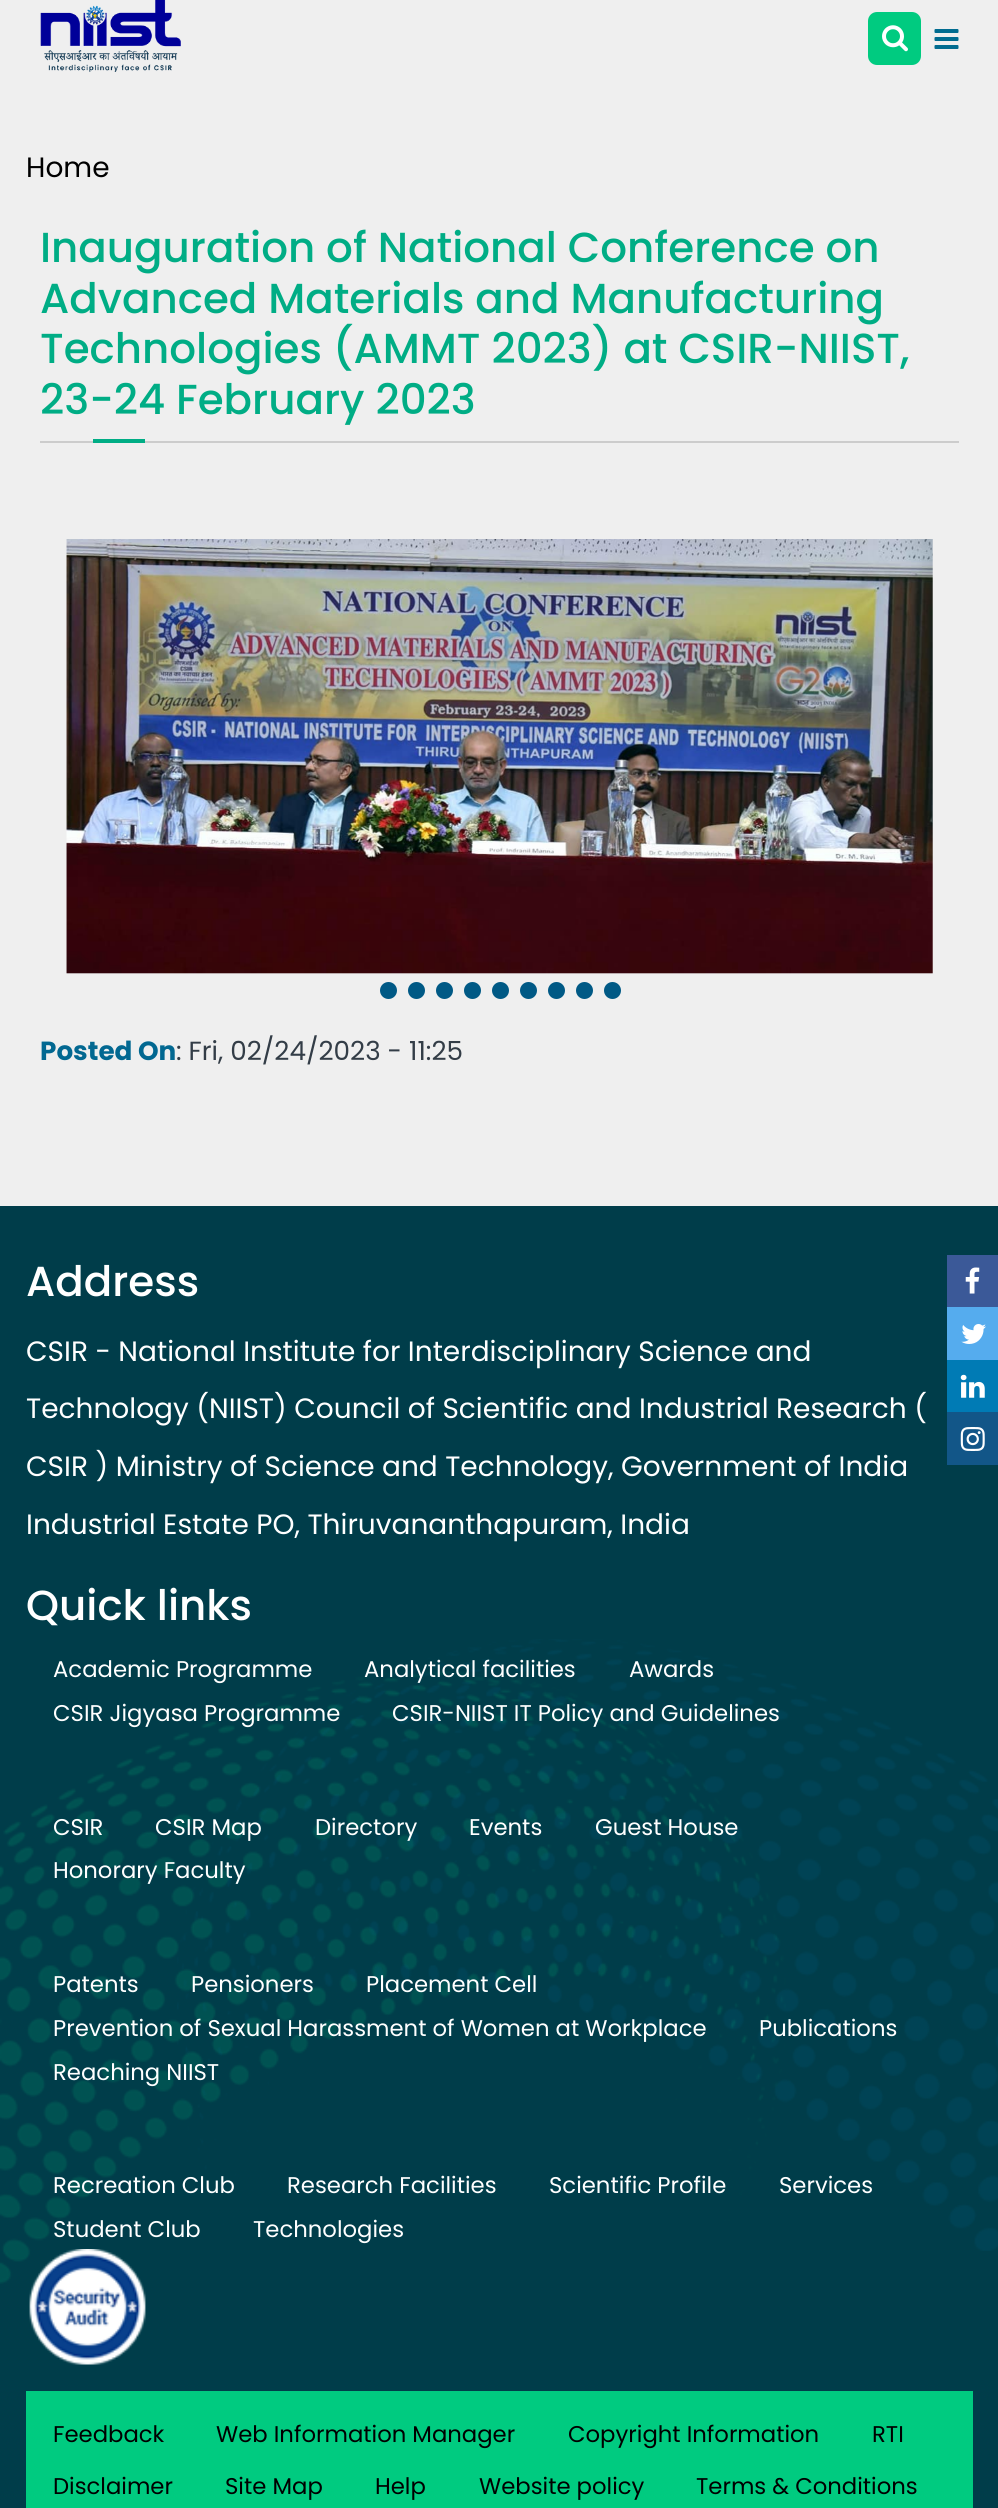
import math
import cairo

surface = cairo.ImageSurface(cairo.FORMAT_RGB24, 998, 2508)
c = cairo.Context(surface)
options = cairo.FontOptions()
options.set_hint_metrics(cairo.HINT_METRICS_OFF)
options.set_hint_style(cairo.HINT_STYLE_NONE)
c.set_font_options(options)
c.set_miter_limit(4)
def C(code):
 c.set_source_rgb(*(v / 255 for v in bytes.fromhex(code[-6:])))
def F(family, size, italic, bold):
 c.select_font_face(family, cairo.FONT_SLANT_ITALIC if italic else cairo.FONT_SLANT_NORMAL, cairo.FONT_WEIGHT_BOLD if bold else cairo.FONT_WEIGHT_NORMAL)
 c.set_font_size(size)
def T(x, y, s):
 c.move_to(x, y)
 c.show_text(s)
def R(x, y, w, h):
 c.rectangle(x, y, w, h)
 c.fill()
def Q(x, y, w, h, r):
 c.new_sub_path()
 for i, (u, v) in enumerate([(x + w - r, y + h - r), (x + r, y + h - r), (x + r, y + r), (x + w - r, y + r)]):
  c.arc(u, v, r, i * math.pi / 2, (i + 1) * math.pi / 2)
 c.close_path()
def I(path, x, y, w, h):
 c.save()
 c.set_source_surface(cairo.ImageSurface.create_from_png(path), x, y)
 c.rectangle(x, y, w, h)
 c.fill()
 c.restore()
C('efefef')
c.paint()
I('1.png',40,0,141,72)
C('00cb80')
Q(868,12,53,53,9)
c.fill()
I('2.png',882,25,26,27)
I('3.png',934,29,25,20)
F('Poppins',28,0,0)
C('000000')
T(26,177,'Home')
F('Poppins Medium',42,0,0)
C('00ad85')
T(40,262,'Inauguration of National Conference on')
T(40,313,'Advanced Materials and Manufacturing')
T(40,363,'Technologies (AMMT 2023) at CSIR-NIIST,')
T(40,414,'23-24 February 2023')
C('cccccc')
R(40,441,919,2)
C('00ad85')
R(93,439,52,4)
I('4.png',66,539,867,435)
C('005985')
c.arc(388.5,990.5,8.5,0,2 * math.pi)
c.fill()
c.arc(416.5,990.5,8.5,0,2 * math.pi)
c.fill()
c.arc(444.5,990.5,8.5,0,2 * math.pi)
c.fill()
c.arc(472.5,990.5,8.5,0,2 * math.pi)
c.fill()
c.arc(500.5,990.5,8.5,0,2 * math.pi)
c.fill()
c.arc(528.5,990.5,8.5,0,2 * math.pi)
c.fill()
c.arc(556.5,990.5,8.5,0,2 * math.pi)
c.fill()
c.arc(584.5,990.5,8.5,0,2 * math.pi)
c.fill()
c.arc(612.5,990.5,8.5,0,2 * math.pi)
c.fill()
F('Poppins',26.25,0,1)
C('026891')
T(40,1060,'Posted On')
F('Poppins',26.25,0,0)
C('333d47')
T(176,1060,': Fri, 02/24/2023 - 11:25')
C('003d4a')
R(0,1206,998,1302)
F('Poppins Medium',42,0,0)
C('ffffff')
T(26,1296,'Address')
F('Poppins',28,0,0)
T(26,1361,'CSIR - National Institute for Interdisciplinary Science and')
T(26,1418,'Technology (NIIST) Council of Scientific and Industrial Research (')
T(26,1476,'CSIR ) Ministry of Science and Technology, Government of India')
T(26,1534,'Industrial Estate PO, Thiruvananthapuram, India')
F('Poppins Medium',42,0,0)
T(26,1620,'Quick links')
I('7.png',0,1671,786,613)
I('6.png',177,1639,821,612)
F('Poppins',22.75,0,0)
T(53,1677,'Academic Programme')
T(364,1677,'Analytical facilities')
T(629,1677,'Awards')
T(53,1721,'CSIR Jigyasa Programme')
T(392,1721,'CSIR-NIIST IT Policy and Guidelines')
T(53,1835,'CSIR')
T(155,1835,'CSIR Map')
T(315,1835,'Directory')
T(469,1835,'Events')
T(595,1835,'Guest House')
T(53,1878,'Honorary Faculty')
T(53,1992,'Patents')
T(191,1992,'Pensioners')
T(366,1992,'Placement Cell')
T(53,2036,'Prevention of Sexual Harassment of Women at Workplace')
T(759,2036,'Publications')
T(53,2080,'Reaching NIIST')
T(53,2193,'Recreation Club')
T(287,2193,'Research Facilities')
T(549,2193,'Scientific Profile')
T(779,2193,'Services')
T(53,2237,'Student Club')
T(253,2237,'Technologies')
I('5.png',29,2249,117,116)
C('00cb80')
R(26,2391,947,117)
C('000000')
T(53,2442,'Feedback')
T(216,2442,'Web Information Manager')
T(568,2442,'Copyright Information')
T(872,2442,'RTI')
T(53,2494,'Disclaimer')
T(225,2494,'Site Map')
T(375,2494,'Help')
T(479,2494,'Website policy')
T(696,2494,'Terms & Conditions')
C('3b5998')
R(947,1255,51,52)
I('8.png',965,1267,15,27)
C('55acee')
R(947,1307,51,53)
I('9.png',961,1324,25,20)
C('007bb5')
R(947,1360,51,52)
I('10.png',960,1374,25,24)
C('125688')
R(947,1412,51,53)
I('11.png',960,1427,25,24)
surface.write_to_png('o.png')
